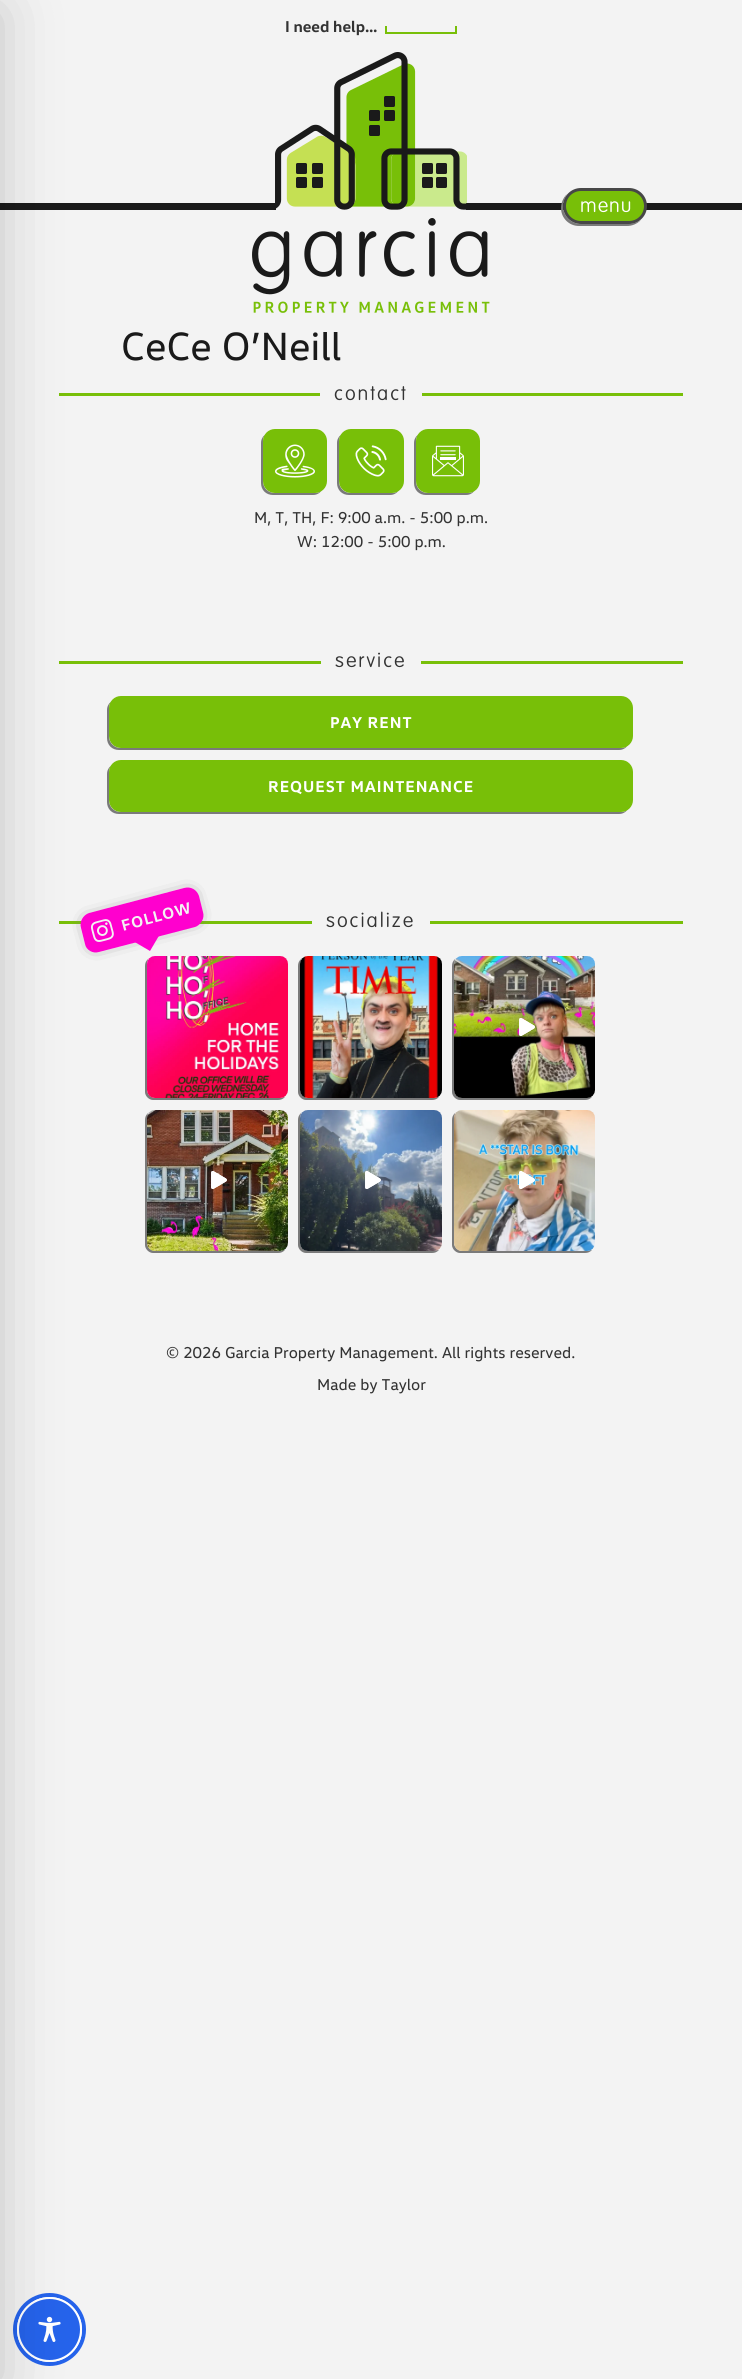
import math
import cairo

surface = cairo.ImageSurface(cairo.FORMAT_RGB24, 742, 2379)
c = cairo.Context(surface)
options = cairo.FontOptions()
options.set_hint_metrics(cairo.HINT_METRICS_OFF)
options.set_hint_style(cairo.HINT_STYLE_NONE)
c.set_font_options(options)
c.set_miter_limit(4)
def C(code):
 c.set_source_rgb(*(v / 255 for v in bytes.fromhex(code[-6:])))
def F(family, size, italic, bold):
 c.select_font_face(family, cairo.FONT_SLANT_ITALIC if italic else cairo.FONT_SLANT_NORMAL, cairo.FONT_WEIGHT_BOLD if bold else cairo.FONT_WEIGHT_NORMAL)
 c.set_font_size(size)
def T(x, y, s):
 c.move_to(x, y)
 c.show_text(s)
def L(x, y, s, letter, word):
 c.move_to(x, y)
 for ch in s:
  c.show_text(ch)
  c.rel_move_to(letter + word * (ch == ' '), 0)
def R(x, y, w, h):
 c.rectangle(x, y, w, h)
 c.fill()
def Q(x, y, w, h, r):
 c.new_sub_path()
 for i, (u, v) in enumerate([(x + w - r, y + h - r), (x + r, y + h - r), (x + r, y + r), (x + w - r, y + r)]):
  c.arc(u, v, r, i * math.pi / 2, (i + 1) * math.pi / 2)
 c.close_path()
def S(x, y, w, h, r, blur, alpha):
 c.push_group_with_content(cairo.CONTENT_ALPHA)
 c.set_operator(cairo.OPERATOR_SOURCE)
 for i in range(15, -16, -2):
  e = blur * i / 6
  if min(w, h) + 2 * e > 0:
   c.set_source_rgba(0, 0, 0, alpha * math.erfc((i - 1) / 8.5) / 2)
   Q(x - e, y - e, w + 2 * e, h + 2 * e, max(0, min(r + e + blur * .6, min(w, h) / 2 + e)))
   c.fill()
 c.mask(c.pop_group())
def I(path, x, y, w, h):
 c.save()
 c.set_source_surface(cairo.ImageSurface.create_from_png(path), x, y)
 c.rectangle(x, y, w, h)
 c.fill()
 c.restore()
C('f3f3f3')
c.paint()
C('1a1a1a')
R(0,203,742,7)
C('78bf08')
R(59,393,261,3)
R(59,661,262,3)
C('7a7a7a')
c.new_path()
c.move_to(148,959)
c.curve_to(146,961,145,963,145,966)
c.line_to(145,1092)
c.curve_to(145,1096,149,1100,153,1100)
c.line_to(278,1100)
c.curve_to(281,1100,283,1099,285,1097)
c.curve_to(283,1097,282,1098,280,1098)
c.line_to(155,1098)
c.curve_to(151,1098,147,1094,147,1090)
c.line_to(147,964)
c.curve_to(147,962,148,961,148,959)
c.close_path()
c.fill()
I('13.png',147,956,141,142)
C('78bf08')
R(59,921,253,3)
c.new_path()
c.move_to(88,909.5)
c.line_to(183,884)
c.curve_to(191.5,882,200.5,887,202.5,895.5)
c.line_to(207,911)
c.curve_to(209,919.5,204,928,195.5,930.5)
c.line_to(100.5,956)
c.curve_to(92,958,83,953,81,944.5)
c.line_to(77,929)
c.curve_to(74.5,920.5,79.5,912,88,909.5)
c.close_path()
c.set_source_rgba(0.478,0.478,0.478,0.05)
c.set_line_width(8)
c.stroke()
c.new_path()
c.move_to(88.5,911.5)
c.line_to(183.5,886)
c.curve_to(191,884,199,888.5,201,896)
c.line_to(205,911.5)
c.curve_to(207,919,202.5,926.5,195,928.5)
c.line_to(100,954)
c.curve_to(92.5,956,85,951.5,83,944)
c.line_to(78.5,928.5)
c.curve_to(76.5,921,81,913.5,88.5,911.5)
c.close_path()
c.set_source_rgba(0.478,0.478,0.478,0.1)
c.set_line_width(4)
c.stroke()
C('ff00ce')
c.new_path()
c.move_to(89,913)
c.line_to(184,888)
c.curve_to(191,886,197,890,199,896)
c.line_to(203,912)
c.curve_to(205,918,201,925,195,927)
c.line_to(99,952)
c.curve_to(93,954,86,950,85,944)
c.line_to(81,928)
c.curve_to(79,922,83,915,89,913)
c.close_path()
c.fill()
c.arc(49.5,2329.5,34.5,0,2 * math.pi)
C('2563eb')
c.stroke()
c.arc(49.5,2329.5,31.5,0,2 * math.pi)
c.fill_preserve()
C('ffffff')
c.set_line_width(2)
c.stroke()
I('27.png',38,2316,23,26)
C('000000')
S(-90,10,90,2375,0,30,.2)
F('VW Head',16,0,1)
C('333333')
T(285,32,'I need help…')
C('78bf08')
R(385,26,2,8)
R(455,26,2,8)
R(385,32,72,2)
C('f3f3f3')
R(276,203,190,7)
I('1.png',275,52,192,158)
C('7a7a7a')
c.new_path()
c.move_to(567,194)
c.curve_to(563,198,561,203,561,208)
c.curve_to(561,218,569,226,579,226)
c.line_to(627,226)
c.curve_to(632,226,637,224,641,220)
c.curve_to(638,222,633,224,629,224)
c.line_to(581,224)
c.curve_to(571,224,563,216,563,206)
c.curve_to(563,202,565,197,567,194)
c.close_path()
c.fill()
C('78bf08')
Q(564.5,189.5,81,33,16.5)
c.fill_preserve()
C('474747')
c.set_line_width(3)
c.stroke()
F('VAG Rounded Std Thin',20,0,0)
C('ffffff')
L(580,212,'menu',1,0)
I('2.png',252,218,238,95)
F('VW Head',40,0,0)
C('1a1a1a')
T(121,360,'CeCe O’Neill')
F('VAG Rounded Std Thin',20,0,0)
C('333333')
L(334,400,'contact',2,0)
C('78bf08')
R(422,393,261,3)
C('7a7a7a')
c.new_path()
c.move_to(266,434)
c.curve_to(263,436,261,439,261,443)
c.line_to(261,483)
c.curve_to(261,490,266,495,273,495)
c.line_to(313,495)
c.curve_to(317,495,320,493,322,490)
c.curve_to(320,492,318,493,315,493)
c.line_to(275,493)
c.curve_to(268,493,263,488,263,481)
c.line_to(263,441)
c.curve_to(263,438,264,436,266,434)
c.close_path()
c.fill()
C('78bf08')
Q(263,429,64,64,12)
c.fill()
I('3.png',285,444,20,27)
I('4.png',275,465,40,13)
I('5.png',281,468,28,6)
C('7a7a7a')
c.new_path()
c.move_to(342,434)
c.curve_to(339,436,337,439,337,443)
c.line_to(337,483)
c.curve_to(337,490,342,495,349,495)
c.line_to(390,495)
c.curve_to(394,495,397,493,399,490)
c.curve_to(397,492,395,493,392,493)
c.line_to(351,493)
c.curve_to(344,493,339,488,339,481)
c.line_to(339,441)
c.curve_to(339,438,340,436,342,434)
c.close_path()
c.fill()
C('78bf08')
Q(339,429,65,64,12)
c.fill()
I('7.png',355,447,30,30)
I('8.png',371,451,10,10)
I('6.png',371,445,16,16)
C('7a7a7a')
c.new_path()
c.move_to(419,434)
c.curve_to(416,436,414,439,414,443)
c.line_to(414,483)
c.curve_to(414,490,419,495,426,495)
c.line_to(466,495)
c.curve_to(470,495,473,493,475,490)
c.curve_to(473,492,471,493,468,493)
c.line_to(428,493)
c.curve_to(421,493,416,488,416,481)
c.line_to(416,441)
c.curve_to(416,438,417,436,419,434)
c.close_path()
c.fill()
C('78bf08')
Q(416,429,64,64,12)
c.fill()
I('9.png',432,445,32,32)
I('10.png',440,450,16,2)
I('11.png',440,454,16,2)
C('ffffff')
R(440,457,16,3)
F('VW Head',16,0,0)
C('333333')
T(254,523,'M, T, TH, F: 9:00 a.m. - 5:00 p.m.')
T(297,547,'W: 12:00 - 5:00 p.m.')
F('VAG Rounded Std Thin',20,0,0)
L(335,667,'service',2,0)
C('78bf08')
R(421,661,262,3)
C('7a7a7a')
c.new_path()
c.move_to(112,701)
c.curve_to(109,703,107,706,107,710)
c.line_to(107,738)
c.curve_to(107,745,112,750,119,750)
c.line_to(619,750)
c.curve_to(623,750,626,748,628,745)
c.curve_to(626,747,624,748,621,748)
c.line_to(121,748)
c.curve_to(114,748,109,743,109,736)
c.line_to(109,708)
c.curve_to(109,705,110,703,112,701)
c.close_path()
c.fill()
C('78bf08')
Q(109,696,524,52,12)
c.fill()
F('VW Head',16,0,1)
C('ffffff')
L(330,728,'PAY RENT',1,0)
C('7a7a7a')
c.new_path()
c.move_to(112,765)
c.curve_to(109,767,107,770,107,774)
c.line_to(107,802)
c.curve_to(107,809,112,814,119,814)
c.line_to(619,814)
c.curve_to(623,814,626,812,628,809)
c.curve_to(626,811,624,812,621,812)
c.line_to(121,812)
c.curve_to(114,812,109,807,109,800)
c.line_to(109,772)
c.curve_to(109,769,110,767,112,765)
c.close_path()
c.fill()
C('78bf08')
Q(109,760,524,52,12)
c.fill()
C('ffffff')
L(268,792,'REQUEST MAINTENANCE',1,0)
I('12.png',91,919,23,23)
C('ff00ce')
c.new_path()
c.move_to(121,934)
c.line_to(167,922)
c.line_to(150,951)
c.close_path()
c.fill()
C('f3f3f3')
c.save()
c.translate(123,931)
c.rotate(-15 * math.pi / 180)
L(0,0,'FOLLOW',1,0)
c.restore()
C('7a7a7a')
c.new_path()
c.move_to(301,959)
c.curve_to(299,961,298,963,298,966)
c.line_to(298,1092)
c.curve_to(298,1096,302,1100,306,1100)
c.line_to(432,1100)
c.curve_to(435,1100,437,1099,439,1097)
c.curve_to(437,1097,436,1098,434,1098)
c.line_to(308,1098)
c.curve_to(304,1098,300,1094,300,1090)
c.line_to(300,964)
c.curve_to(300,962,301,961,301,959)
c.close_path()
c.fill()
I('14.png',300,956,142,142)
c.new_path()
c.move_to(455,959)
c.curve_to(453,961,452,963,452,966)
c.line_to(452,1092)
c.curve_to(452,1096,456,1100,460,1100)
c.line_to(585,1100)
c.curve_to(588,1100,590,1099,592,1097)
c.curve_to(590,1097,589,1098,587,1098)
c.line_to(462,1098)
c.curve_to(458,1098,454,1094,454,1090)
c.line_to(454,964)
c.curve_to(454,962,455,961,455,959)
c.close_path()
c.fill()
I('15.png',454,956,141,142)
I('16.png',519,1018,16,18)
I('17.png',519,1018,16,18)
c.new_path()
c.move_to(148,1113)
c.curve_to(146,1115,145,1117,145,1120)
c.line_to(145,1245)
c.curve_to(145,1249,149,1253,153,1253)
c.line_to(278,1253)
c.curve_to(281,1253,283,1252,285,1250)
c.curve_to(283,1250,282,1251,280,1251)
c.line_to(155,1251)
c.curve_to(151,1251,147,1247,147,1243)
c.line_to(147,1118)
c.curve_to(147,1116,148,1115,148,1113)
c.close_path()
c.fill()
I('18.png',147,1110,141,141)
I('19.png',211,1171,16,18)
I('20.png',211,1171,16,18)
c.new_path()
c.move_to(301,1113)
c.curve_to(299,1115,298,1117,298,1120)
c.line_to(298,1245)
c.curve_to(298,1249,302,1253,306,1253)
c.line_to(432,1253)
c.curve_to(435,1253,437,1252,439,1250)
c.curve_to(437,1250,436,1251,434,1251)
c.line_to(308,1251)
c.curve_to(304,1251,300,1247,300,1243)
c.line_to(300,1118)
c.curve_to(300,1116,301,1115,301,1113)
c.close_path()
c.fill()
I('21.png',300,1110,142,141)
I('22.png',365,1171,16,18)
I('23.png',365,1171,16,18)
c.new_path()
c.move_to(455,1113)
c.curve_to(453,1115,452,1117,452,1120)
c.line_to(452,1245)
c.curve_to(452,1249,456,1253,460,1253)
c.line_to(585,1253)
c.curve_to(588,1253,590,1252,592,1250)
c.curve_to(590,1250,589,1251,587,1251)
c.line_to(462,1251)
c.curve_to(458,1251,454,1247,454,1243)
c.line_to(454,1118)
c.curve_to(454,1116,455,1115,455,1113)
c.close_path()
c.fill()
I('24.png',454,1110,141,141)
I('25.png',519,1171,16,18)
I('26.png',519,1171,16,18)
F('VAG Rounded Std Thin',20,0,0)
C('333333')
L(326,927,'socialize',2,0)
C('78bf08')
R(430,921,253,3)
F('VW Head',16,0,0)
C('333333')
T(166,1358,'© 2026 Garcia Property Management. All rights reserved.')
T(317,1390,'Made by Taylor')
surface.write_to_png('o.png')
